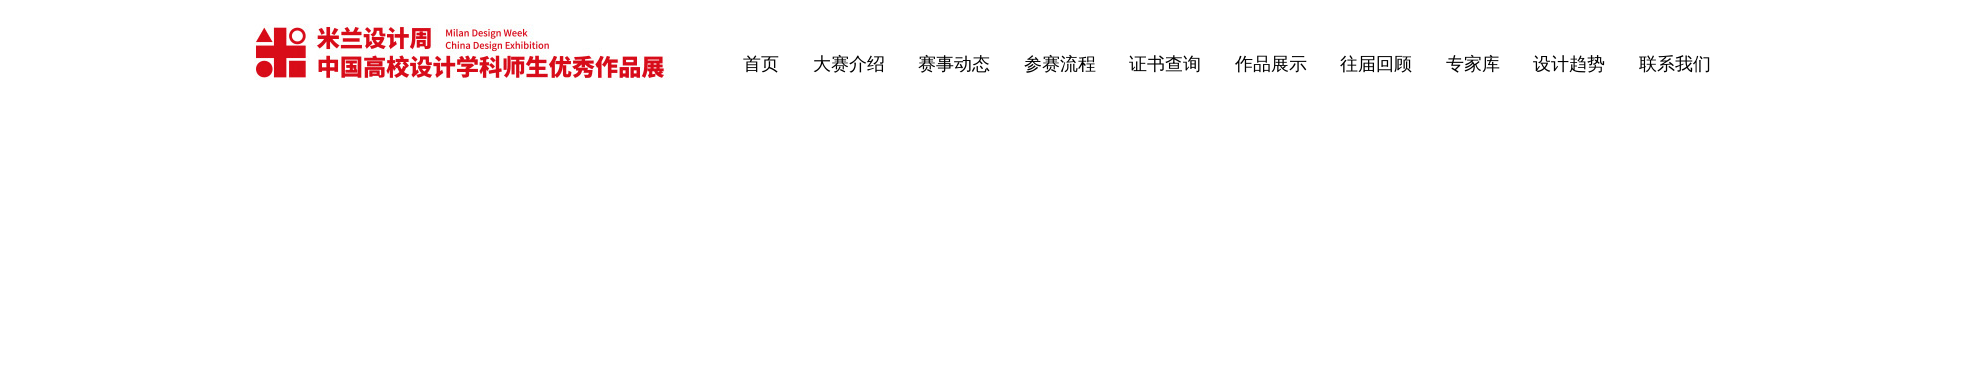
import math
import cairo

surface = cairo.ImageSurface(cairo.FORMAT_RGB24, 1971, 390)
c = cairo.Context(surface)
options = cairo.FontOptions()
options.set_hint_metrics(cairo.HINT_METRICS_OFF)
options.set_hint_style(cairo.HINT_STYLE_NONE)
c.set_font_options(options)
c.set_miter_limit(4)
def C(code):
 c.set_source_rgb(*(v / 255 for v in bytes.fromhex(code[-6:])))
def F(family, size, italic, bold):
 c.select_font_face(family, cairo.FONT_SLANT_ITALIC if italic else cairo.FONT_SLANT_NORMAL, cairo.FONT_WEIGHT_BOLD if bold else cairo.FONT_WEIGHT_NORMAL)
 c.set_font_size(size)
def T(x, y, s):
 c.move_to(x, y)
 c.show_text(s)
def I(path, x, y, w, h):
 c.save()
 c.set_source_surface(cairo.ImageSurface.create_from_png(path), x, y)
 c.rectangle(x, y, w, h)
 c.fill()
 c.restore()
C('ffffff')
c.paint()
I('1.png',254,24,416,56)
F('WenQuanYi Zen Hei Medium',18,0,0)
C('000000')
T(743,70,'首页')
T(813,70,'大赛介绍')
T(918,70,'赛事动态')
T(1024,70,'参赛流程')
T(1129,70,'证书查询')
T(1235,70,'作品展示')
T(1340,70,'往届回顾')
T(1446,70,'专家库')
T(1533,70,'设计趋势')
T(1639,70,'联系我们')
surface.write_to_png('o.png')
